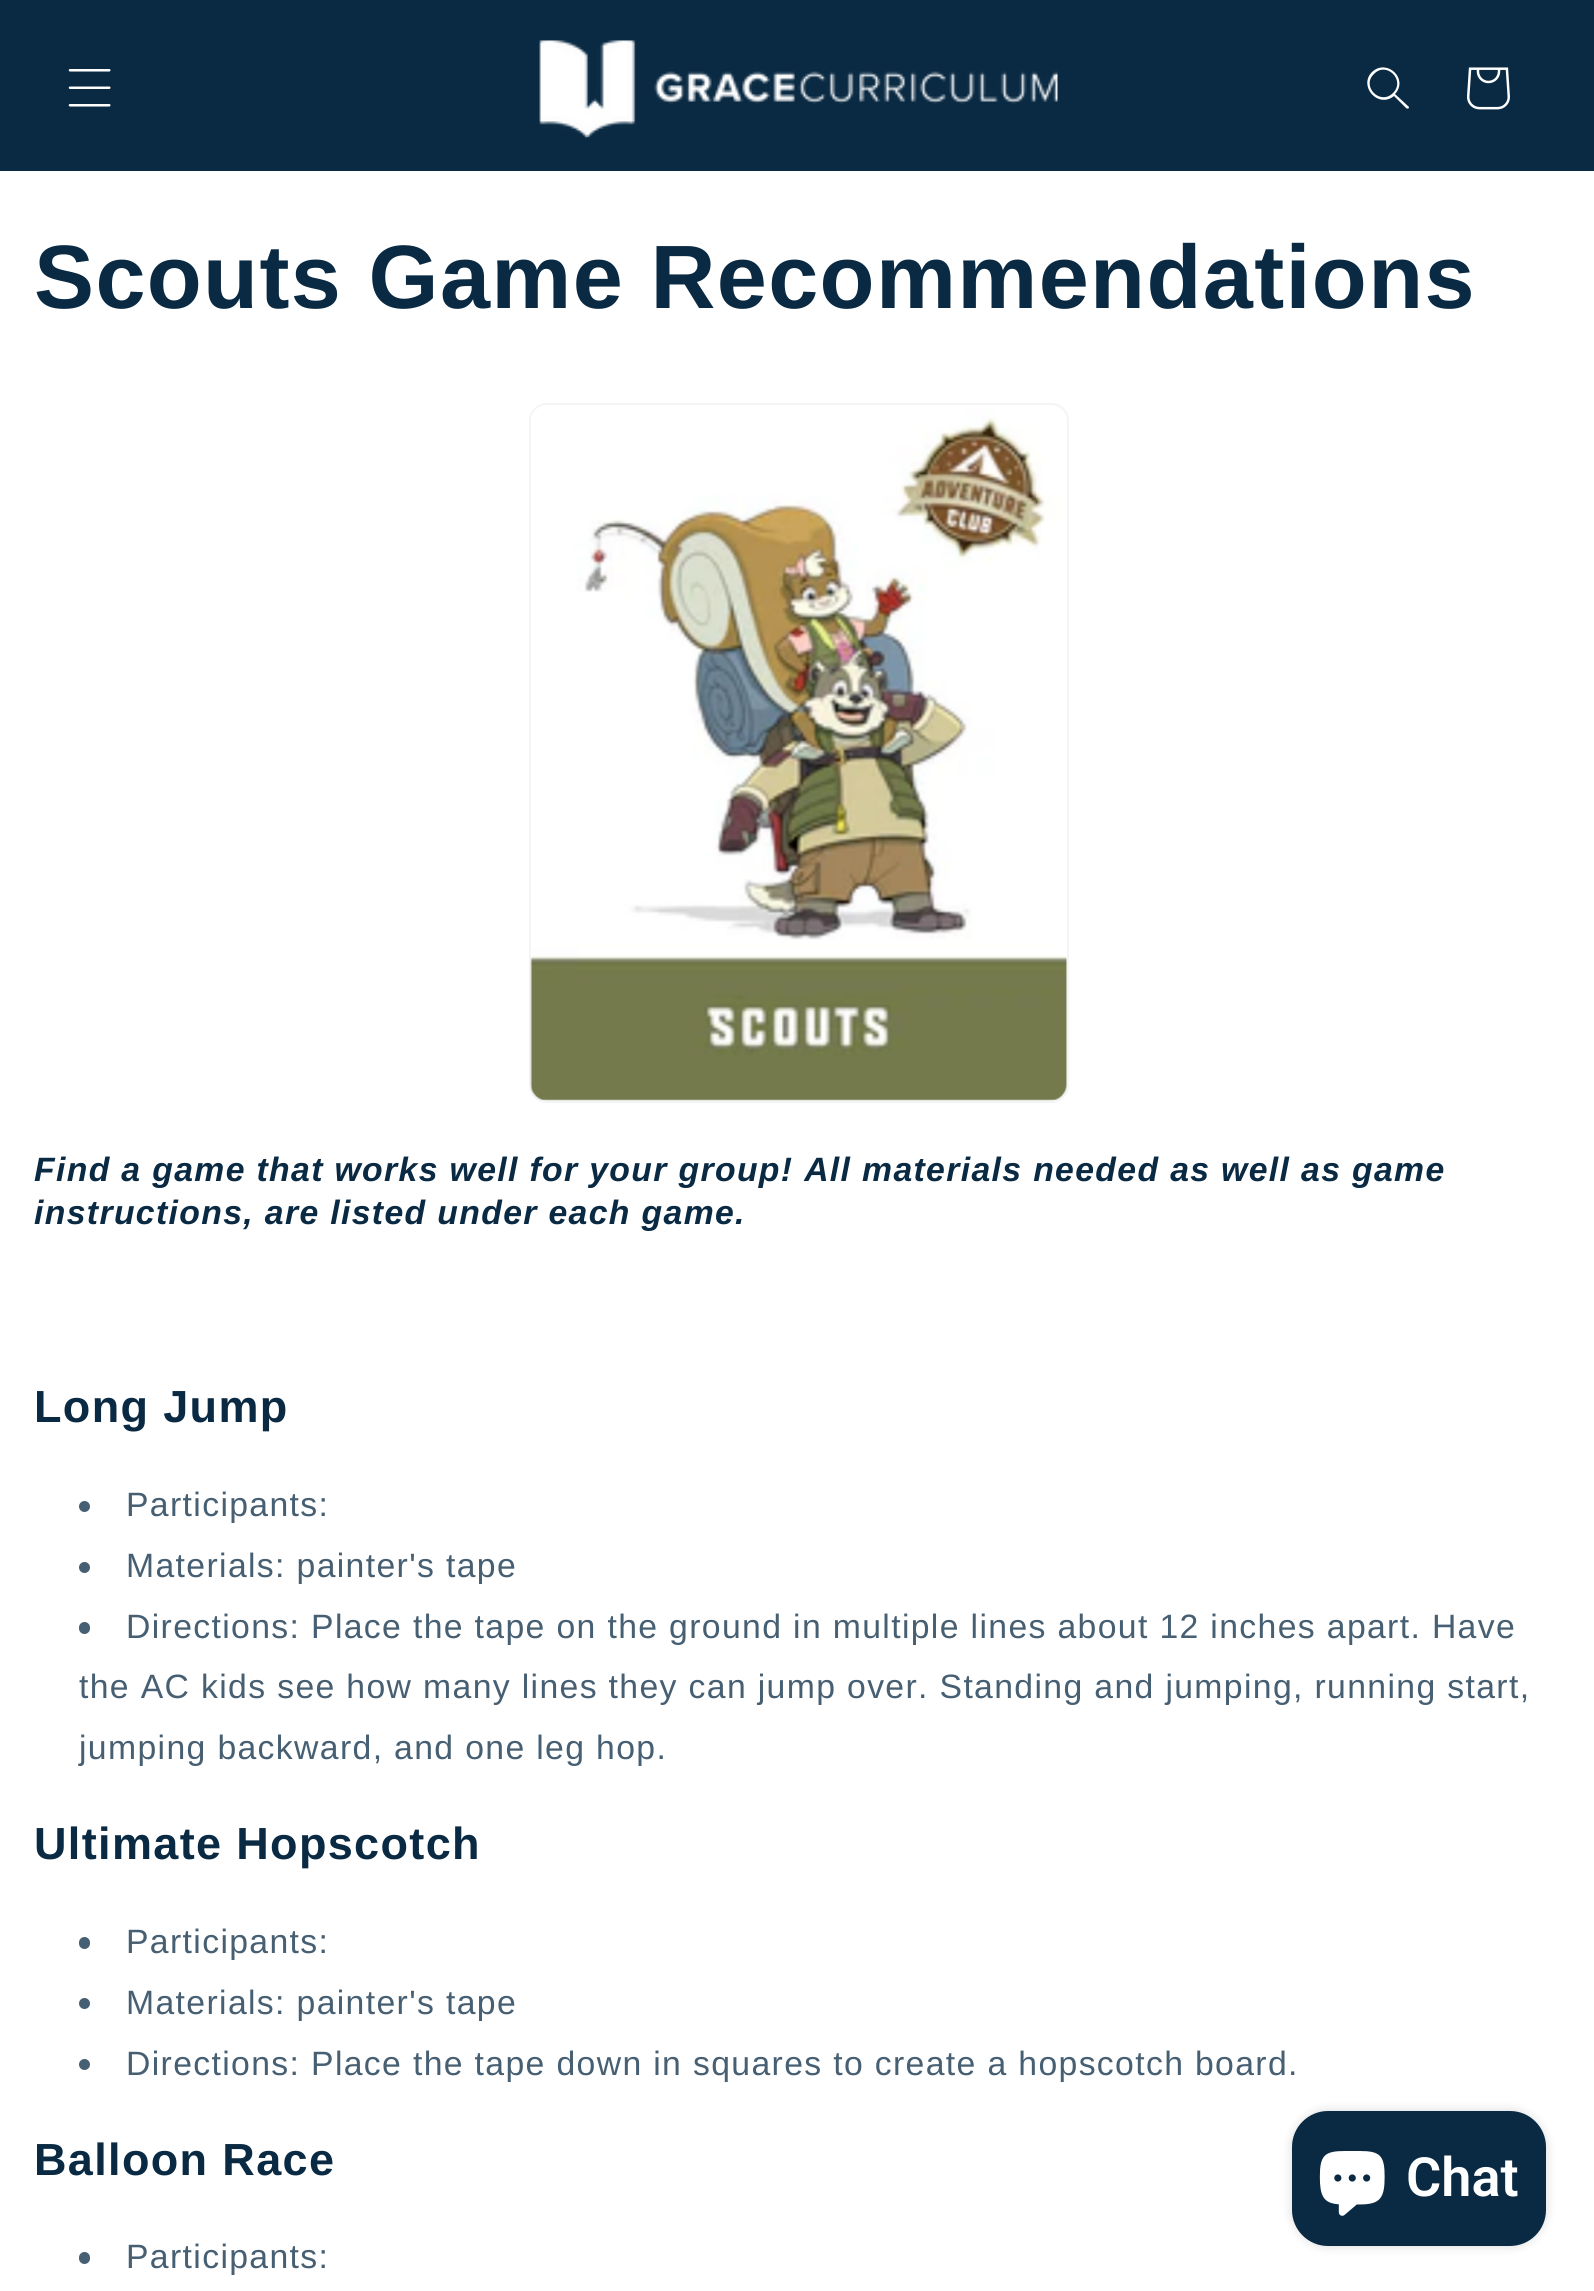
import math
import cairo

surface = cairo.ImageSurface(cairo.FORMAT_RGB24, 1594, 2291)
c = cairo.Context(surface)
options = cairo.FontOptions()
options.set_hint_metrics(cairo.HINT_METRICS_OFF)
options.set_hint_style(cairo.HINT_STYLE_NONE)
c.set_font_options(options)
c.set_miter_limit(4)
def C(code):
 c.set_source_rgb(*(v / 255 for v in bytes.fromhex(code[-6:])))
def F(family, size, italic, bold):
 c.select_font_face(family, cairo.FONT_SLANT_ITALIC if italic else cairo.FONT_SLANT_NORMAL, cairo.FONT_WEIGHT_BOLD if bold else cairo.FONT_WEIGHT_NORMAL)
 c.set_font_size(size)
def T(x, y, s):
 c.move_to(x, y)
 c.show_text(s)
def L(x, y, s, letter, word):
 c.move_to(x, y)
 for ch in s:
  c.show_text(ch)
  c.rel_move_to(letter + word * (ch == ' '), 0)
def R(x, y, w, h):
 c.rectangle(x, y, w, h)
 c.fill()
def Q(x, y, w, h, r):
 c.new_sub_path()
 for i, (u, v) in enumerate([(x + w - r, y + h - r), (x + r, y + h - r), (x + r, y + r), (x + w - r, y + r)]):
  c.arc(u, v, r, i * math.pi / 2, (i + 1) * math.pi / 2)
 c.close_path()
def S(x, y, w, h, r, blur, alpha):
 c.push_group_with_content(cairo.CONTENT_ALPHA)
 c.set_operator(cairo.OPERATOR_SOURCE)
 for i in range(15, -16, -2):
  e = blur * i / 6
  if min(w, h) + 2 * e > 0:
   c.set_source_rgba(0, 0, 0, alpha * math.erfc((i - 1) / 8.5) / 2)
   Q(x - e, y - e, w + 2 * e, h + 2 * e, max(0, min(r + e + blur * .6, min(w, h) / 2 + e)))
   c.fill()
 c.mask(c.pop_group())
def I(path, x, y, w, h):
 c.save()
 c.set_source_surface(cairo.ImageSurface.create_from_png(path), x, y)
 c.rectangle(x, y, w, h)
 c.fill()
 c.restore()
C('ffffff')
c.paint()
C('0a2a43')
R(0,0,1594,171)
I('1.png',68,69,43,38)
I('2.png',539,40,519,98)
C('ffffff')
c.set_fill_rule(cairo.FILL_RULE_EVEN_ODD)
c.new_path()
c.move_to(1393,93)
c.curve_to(1380,106,1361,86,1374,74)
c.curve_to(1386,61,1406,80,1393,93)
c.move_to(1394,96)
c.curve_to(1378,109,1358,86,1372,72)
c.curve_to(1387,58,1409,79,1395,94)
c.line_to(1409,107)
c.curve_to(1409,109,1407,109,1406,108)
c.close_path()
c.fill()
I('3.png',1467,67,43,43)
F('Liberation Sans',90,0,1)
C('0a2a43')
L(34,308,'Scouts Game Recommendations',1.35,0)
Q(530,404,538,698,17)
C('f3f4f6')
c.stroke()
I('4.png',530,409,537,692)
F('Liberation Sans',33.75,1,1)
C('0a2a43')
L(34,1181,'Find a game that works well for your group! All materials needed as well as game',1.35,0)
L(34,1224,'instructions, are listed under each game.',1.35,0)
F('Liberation Sans',45,0,1)
L(34,1422,'Long Jump',1.35,0)
C('475f72')
c.new_path()
c.arc(84.5,1506.5,5.5,0,2 * math.pi)
c.fill()
F('Liberation Sans',33.75,0,0)
L(126,1516,'Participants:',1.35,0)
c.new_path()
c.arc(84.5,1567.5,5.5,0,2 * math.pi)
c.fill()
L(126,1577,'Materials: painter\'s tape',1.35,0)
Q(79,1622,11,12,5.5)
c.fill()
L(126,1638,'Directions: Place the tape on the ground in multiple lines about 12 inches apart. Have',1.35,0)
L(79,1698,'the AC kids see how many lines they can jump over. Standing and jumping, running start,',1.35,0)
L(79,1759,'jumping backward, and one leg hop.',1.35,0)
F('Liberation Sans',45,0,1)
C('0a2a43')
L(34,1859,'Ultimate Hopscotch',1.35,0)
C('475f72')
Q(79,1937,11,12,5.5)
c.fill()
F('Liberation Sans',33.75,0,0)
L(126,1953,'Participants:',1.35,0)
c.new_path()
c.arc(84.5,2003.5,5.5,0,2 * math.pi)
c.fill()
L(126,2014,'Materials: painter\'s tape',1.35,0)
c.new_path()
c.arc(84.5,2064.5,5.5,0,2 * math.pi)
c.fill()
L(126,2075,'Directions: Place the tape down in squares to create a hopscotch board.',1.35,0)
F('Liberation Sans',45,0,1)
C('0a2a43')
L(34,2175,'Balloon Race',1.35,0)
C('475f72')
Q(79,2252,11,12,5.5)
c.fill()
F('Liberation Sans',33.75,0,0)
L(126,2268,'Participants:',1.35,0)
C('000000')
S(1292,2111,254,135,36,5.5,.15)
C('0a2a43')
Q(1292,2111,254,135,36)
c.fill()
I('5.png',1319,2151,66,65)
F('Roboto SemiBold',54,0,0)
C('ffffff')
T(1406,2196,'Chat')
surface.write_to_png('o.png')
